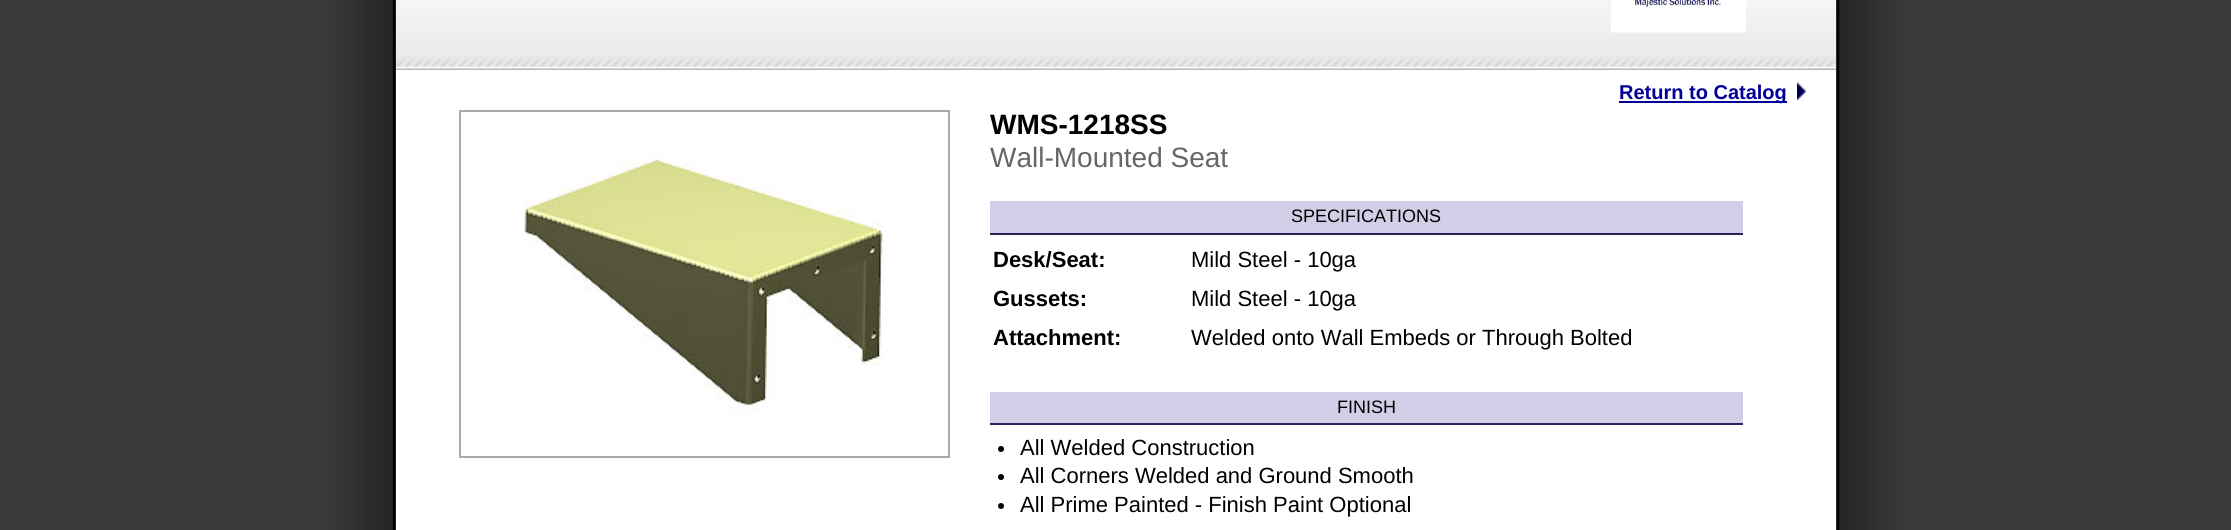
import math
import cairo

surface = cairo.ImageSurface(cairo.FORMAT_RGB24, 2231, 530)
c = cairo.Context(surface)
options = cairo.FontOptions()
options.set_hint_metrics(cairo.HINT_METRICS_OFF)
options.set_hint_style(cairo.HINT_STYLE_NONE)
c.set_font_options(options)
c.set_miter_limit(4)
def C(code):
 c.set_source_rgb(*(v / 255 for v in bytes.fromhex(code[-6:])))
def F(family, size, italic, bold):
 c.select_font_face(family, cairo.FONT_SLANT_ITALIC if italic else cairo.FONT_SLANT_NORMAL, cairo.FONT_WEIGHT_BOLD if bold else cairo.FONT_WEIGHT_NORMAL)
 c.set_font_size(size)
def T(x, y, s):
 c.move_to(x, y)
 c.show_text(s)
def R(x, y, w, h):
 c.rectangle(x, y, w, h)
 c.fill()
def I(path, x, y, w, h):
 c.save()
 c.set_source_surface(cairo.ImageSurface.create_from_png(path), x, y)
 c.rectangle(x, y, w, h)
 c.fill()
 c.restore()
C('ffffff')
c.paint()
I('1.png',0,0,2231,530)
C('ffffff')
R(396,70,1440,460)
I('2.png',396,0,1440,70)
I('3.png',1611,0,135,33)
C('000099')
R(1619,101,168,2)
F('Liberation Sans',20,0,1)
T(1619,99,'Return to Catalog')
I('4.png',1797,82,9,18)
c.rectangle(460,111,489,346)
C('aaaaaa')
c.stroke()
I('5.png',523,149,361,265)
F('Liberation Sans',28,0,1)
C('000000')
T(990,134,'WMS-1218SS')
F('Liberation Sans',28,0,0)
C('666666')
T(990,167,'Wall-Mounted Seat')
C('d0cfe7')
R(990,201,753,32)
C('29255b')
R(990,233,753,2)
F('Liberation Sans',18,0,0)
C('000000')
T(1291,222,'SPECIFICATIONS')
F('Liberation Sans',22,0,1)
T(993,267,'Desk/Seat:')
F('Liberation Sans',22,0,0)
T(1191,267,'Mild Steel - 10ga')
F('Liberation Sans',22,0,1)
T(993,306,'Gussets:')
F('Liberation Sans',22,0,0)
T(1191,306,'Mild Steel - 10ga')
F('Liberation Sans',22,0,1)
T(993,345,'Attachment:')
F('Liberation Sans',22,0,0)
T(1191,345,'Welded onto Wall Embeds or Through Bolted')
C('d0cfe7')
R(990,392,753,31)
C('29255b')
R(990,423,753,2)
F('Liberation Sans',18,0,0)
C('000000')
T(1337,413,'FINISH')
c.new_path()
c.arc(1001,449,3,0,2 * math.pi)
c.fill()
F('Liberation Sans',22,0,0)
T(1020,455,'All Welded Construction')
c.new_path()
c.arc(1001,477,3,0,2 * math.pi)
c.fill()
T(1020,483,'All Corners Welded and Ground Smooth')
c.new_path()
c.arc(1001,506,3,0,2 * math.pi)
c.fill()
T(1020,512,'All Prime Painted - Finish Paint Optional')
surface.write_to_png('o.png')
